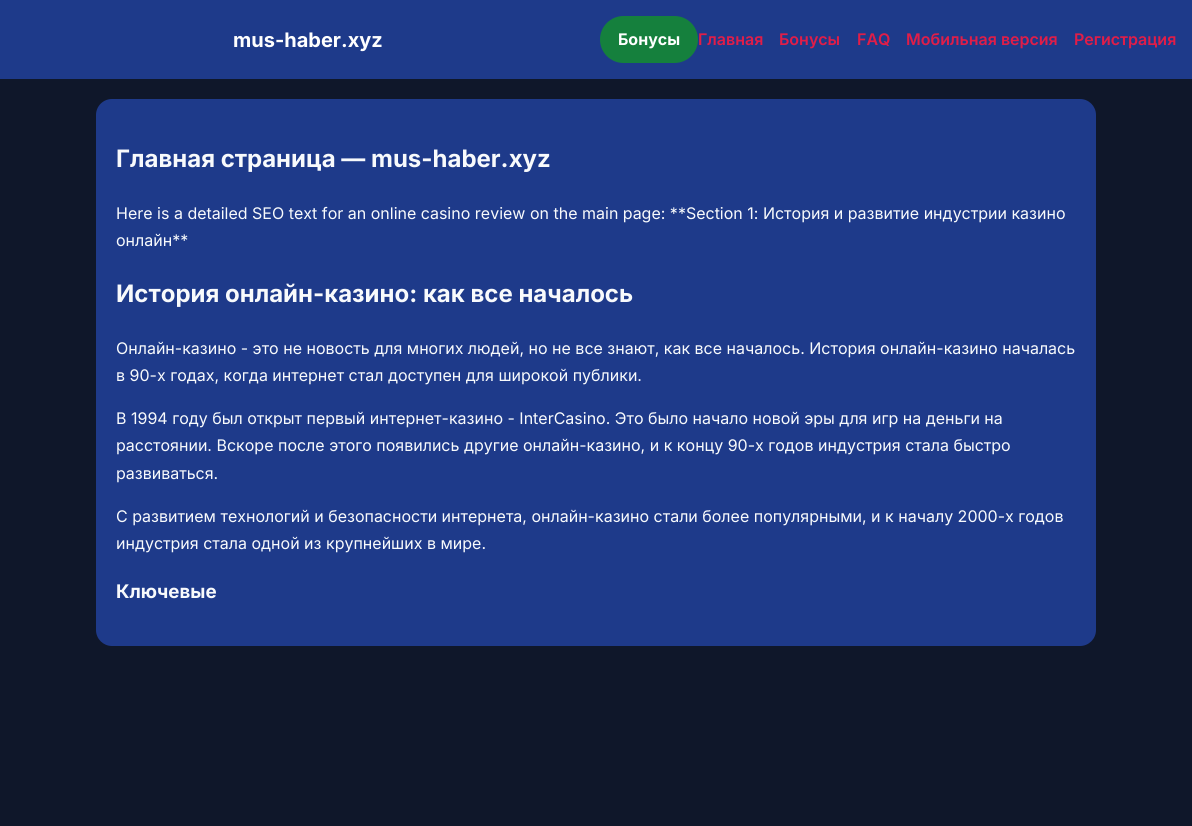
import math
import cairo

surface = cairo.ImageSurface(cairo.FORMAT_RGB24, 1192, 826)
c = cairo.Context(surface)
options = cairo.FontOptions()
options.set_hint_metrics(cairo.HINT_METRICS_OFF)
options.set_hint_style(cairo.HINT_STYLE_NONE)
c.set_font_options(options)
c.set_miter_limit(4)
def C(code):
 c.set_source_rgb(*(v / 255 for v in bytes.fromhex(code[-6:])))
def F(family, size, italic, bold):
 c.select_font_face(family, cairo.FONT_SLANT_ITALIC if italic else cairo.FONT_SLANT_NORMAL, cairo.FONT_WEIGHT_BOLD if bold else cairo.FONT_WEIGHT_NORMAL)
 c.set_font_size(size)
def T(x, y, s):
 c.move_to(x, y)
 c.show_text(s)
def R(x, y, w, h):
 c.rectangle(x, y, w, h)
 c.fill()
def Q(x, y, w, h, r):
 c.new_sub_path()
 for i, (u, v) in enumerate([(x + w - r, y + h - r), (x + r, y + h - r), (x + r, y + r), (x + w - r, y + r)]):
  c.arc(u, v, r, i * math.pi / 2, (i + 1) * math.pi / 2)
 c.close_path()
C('0f172a')
c.paint()
C('1e3a8a')
R(0,0,1192,79)
F('Inter',20,0,1)
C('ffffff')
T(233,47,'mus-haber.xyz')
C('15803d')
Q(600,16,98,47,23.5)
c.fill()
F('Inter',16,0,1)
C('ffffff')
T(618,45,'Бонусы')
F('Inter SemiBold',16,0,0)
C('e11d48')
T(698,45,'Главная')
T(779,45,'Бонусы')
T(857,45,'FAQ')
T(906,45,'Мобильная версия')
T(1074,45,'Регистрация')
C('1e3a8a')
Q(96,99,1000,547,16)
c.fill()
F('Inter',24,0,1)
C('f8fafc')
T(116,167,'Главная страница — mus-haber.xyz')
F('Inter',16,0,0)
T(116,219,'Here is a detailed SEO text for an online casino review on the main page: **Section 1: История и развитие индустрии казино')
T(116,246,'онлайн**')
F('Inter',24,0,1)
T(116,302,'История онлайн-казино: как все началось')
F('Inter',16,0,0)
T(116,354,'Онлайн-казино - это не новость для многих людей, но не все знают, как все началось. История онлайн-казино началась')
T(116,381,'в 90-х годах, когда интернет стал доступен для широкой публики.')
T(116,424,'В 1994 году был открыт первый интернет-казино - InterCasino. Это было начало новой эры для игр на деньги на')
T(116,451,'расстоянии. Вскоре после этого появились другие онлайн-казино, и к концу 90-х годов индустрия стала быстро')
T(116,479,'развиваться.')
T(116,522,'С развитием технологий и безопасности интернета, онлайн-казино стали более популярными, и к началу 2000-х годов')
T(116,549,'индустрия стала одной из крупнейших в мире.')
F('Inter',18.75,0,1)
T(116,598,'Ключевые')
surface.write_to_png('o.png')
